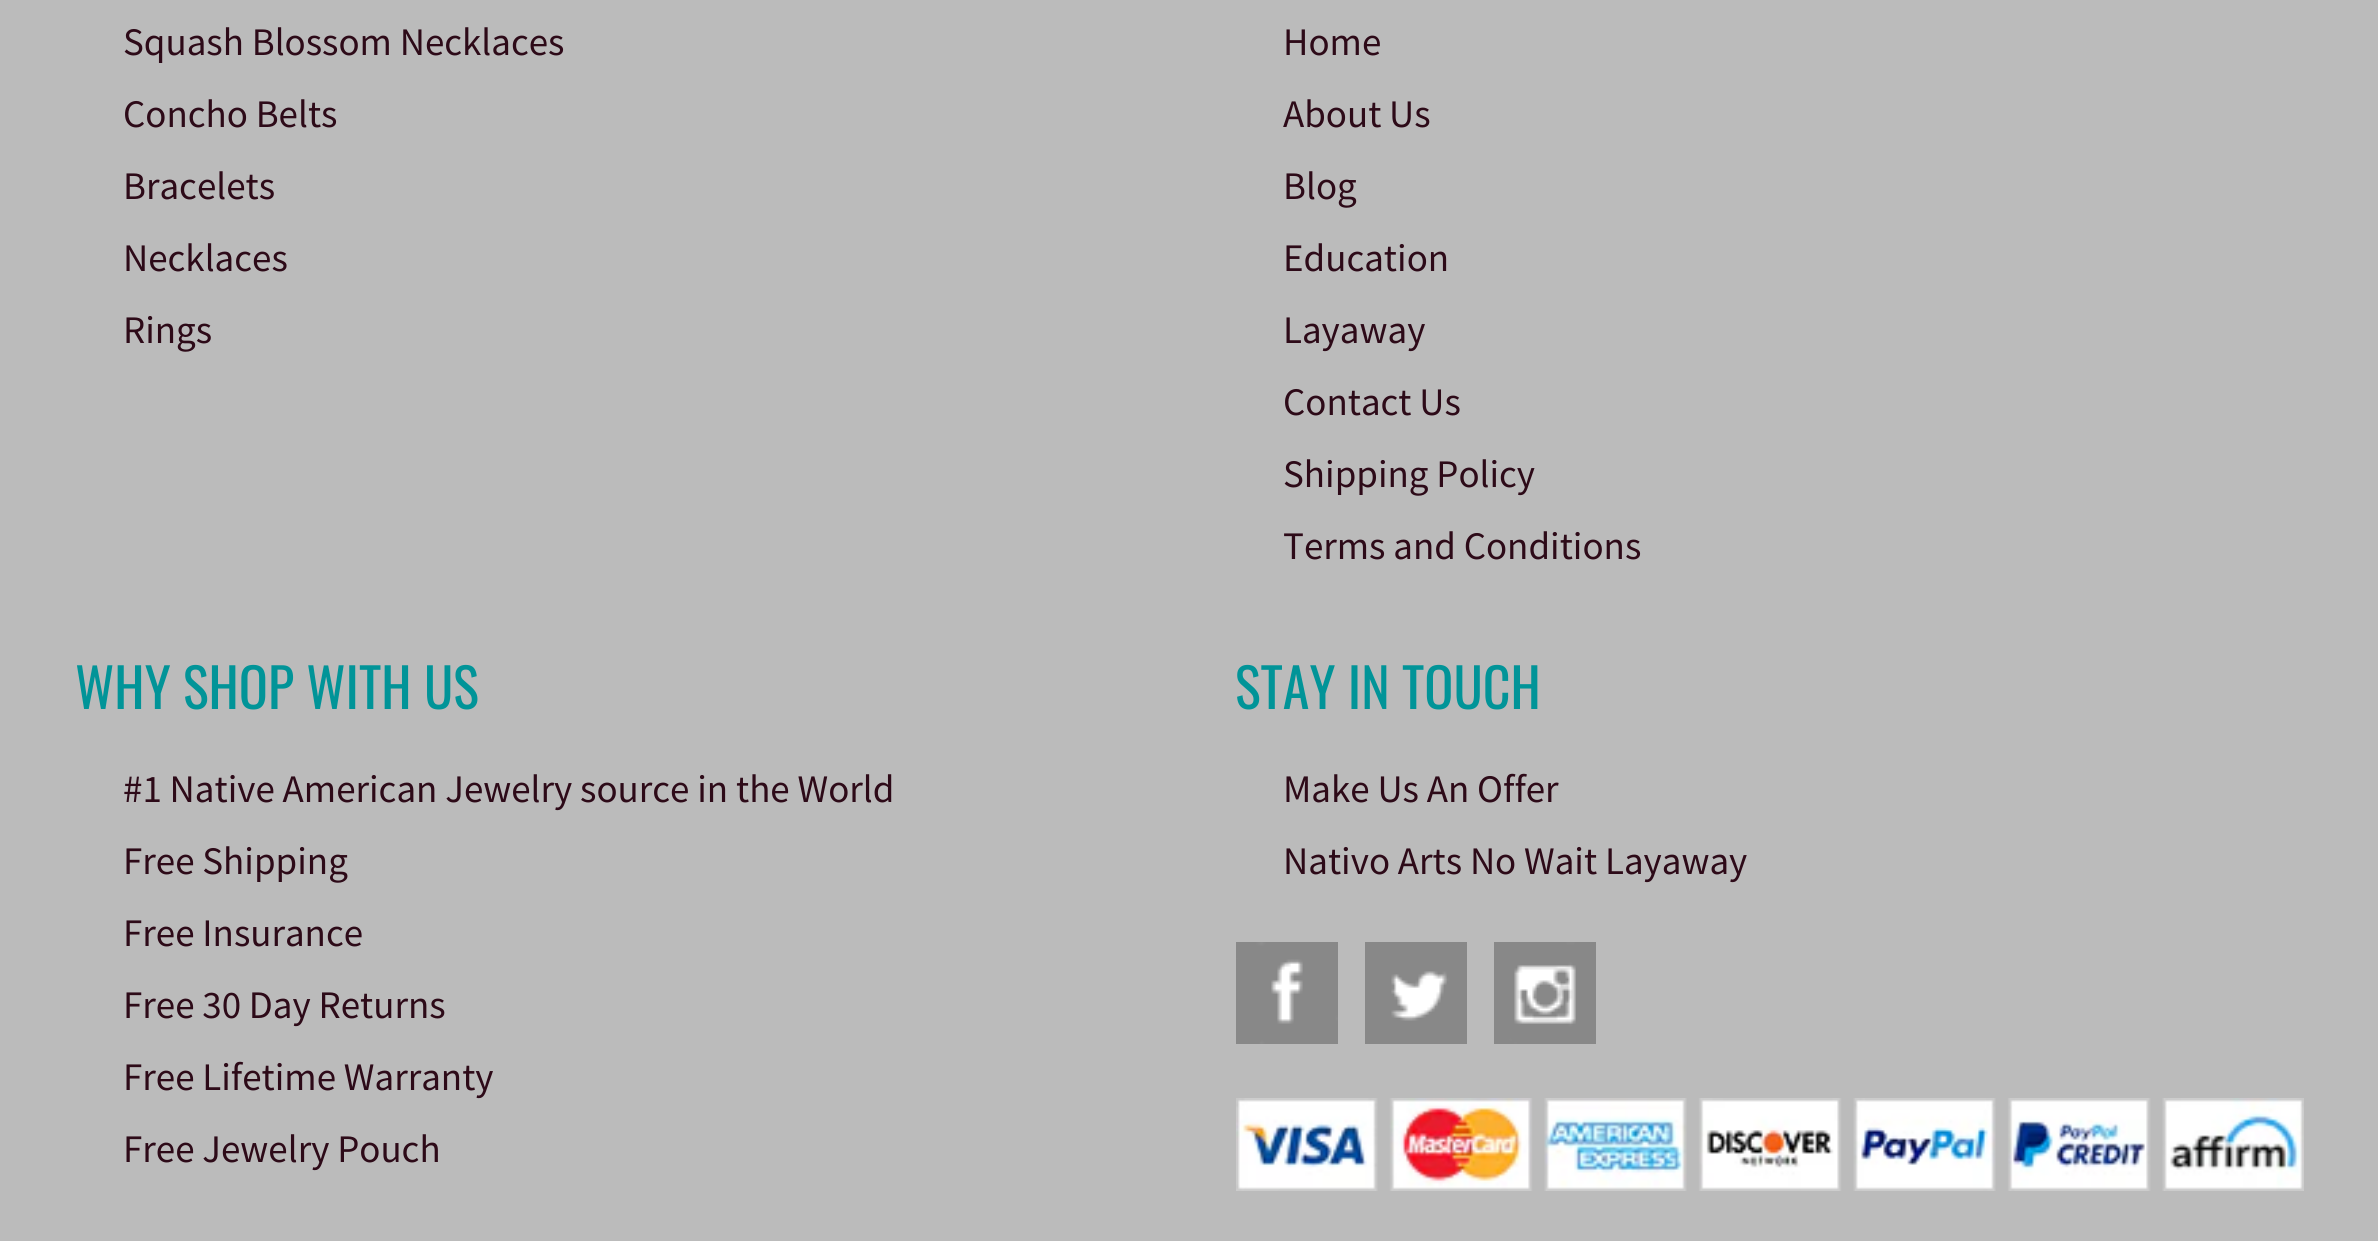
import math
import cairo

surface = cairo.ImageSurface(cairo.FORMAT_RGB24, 2378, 1241)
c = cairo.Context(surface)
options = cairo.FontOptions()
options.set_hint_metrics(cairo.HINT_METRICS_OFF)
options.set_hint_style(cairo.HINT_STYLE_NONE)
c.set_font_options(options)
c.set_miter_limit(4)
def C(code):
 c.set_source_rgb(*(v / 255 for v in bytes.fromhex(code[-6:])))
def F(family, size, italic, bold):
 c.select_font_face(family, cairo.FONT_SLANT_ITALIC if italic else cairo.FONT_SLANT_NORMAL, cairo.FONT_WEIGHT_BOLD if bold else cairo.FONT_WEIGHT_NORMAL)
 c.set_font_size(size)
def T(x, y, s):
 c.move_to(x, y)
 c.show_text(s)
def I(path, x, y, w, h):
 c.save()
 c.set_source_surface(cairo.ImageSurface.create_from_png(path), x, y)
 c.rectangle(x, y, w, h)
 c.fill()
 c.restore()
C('bbbbbb')
c.paint()
F('Source Sans Pro',39,0,0)
C('2d0a18')
T(123,55,'Squash Blossom Necklaces')
T(123,127,'Concho Belts')
T(123,199,'Bracelets')
T(123,271,'Necklaces')
T(123,343,'Rings')
T(1283,55,'Home')
T(1283,127,'About Us')
T(1283,199,'Blog')
T(1283,271,'Education')
T(1283,343,'Layaway')
T(1283,415,'Contact Us')
T(1283,487,'Shipping Policy')
T(1283,559,'Terms and Conditions')
F('Oswald',54,0,0)
C('019498')
T(75,709,'WHY SHOP WITH US')
F('Source Sans Pro',39,0,0)
C('2d0a18')
T(123,802,'#1 Native American Jewelry source in the World')
T(123,874,'Free Shipping')
T(123,946,'Free Insurance')
T(123,1018,'Free 30 Day Returns')
T(123,1090,'Free Lifetime Warranty')
T(123,1162,'Free Jewelry Pouch')
F('Oswald',54,0,0)
C('019498')
T(1235,709,'STAY IN TOUCH')
F('Source Sans Pro',39,0,0)
C('2d0a18')
T(1283,802,'Make Us An Offer')
T(1283,874,'Nativo Arts No Wait Layaway')
I('1.png',1236,942,102,102)
I('2.png',1365,942,102,102)
I('3.png',1494,942,102,102)
I('4.png',1236,1098,1068,93)
surface.write_to_png('o.png')
